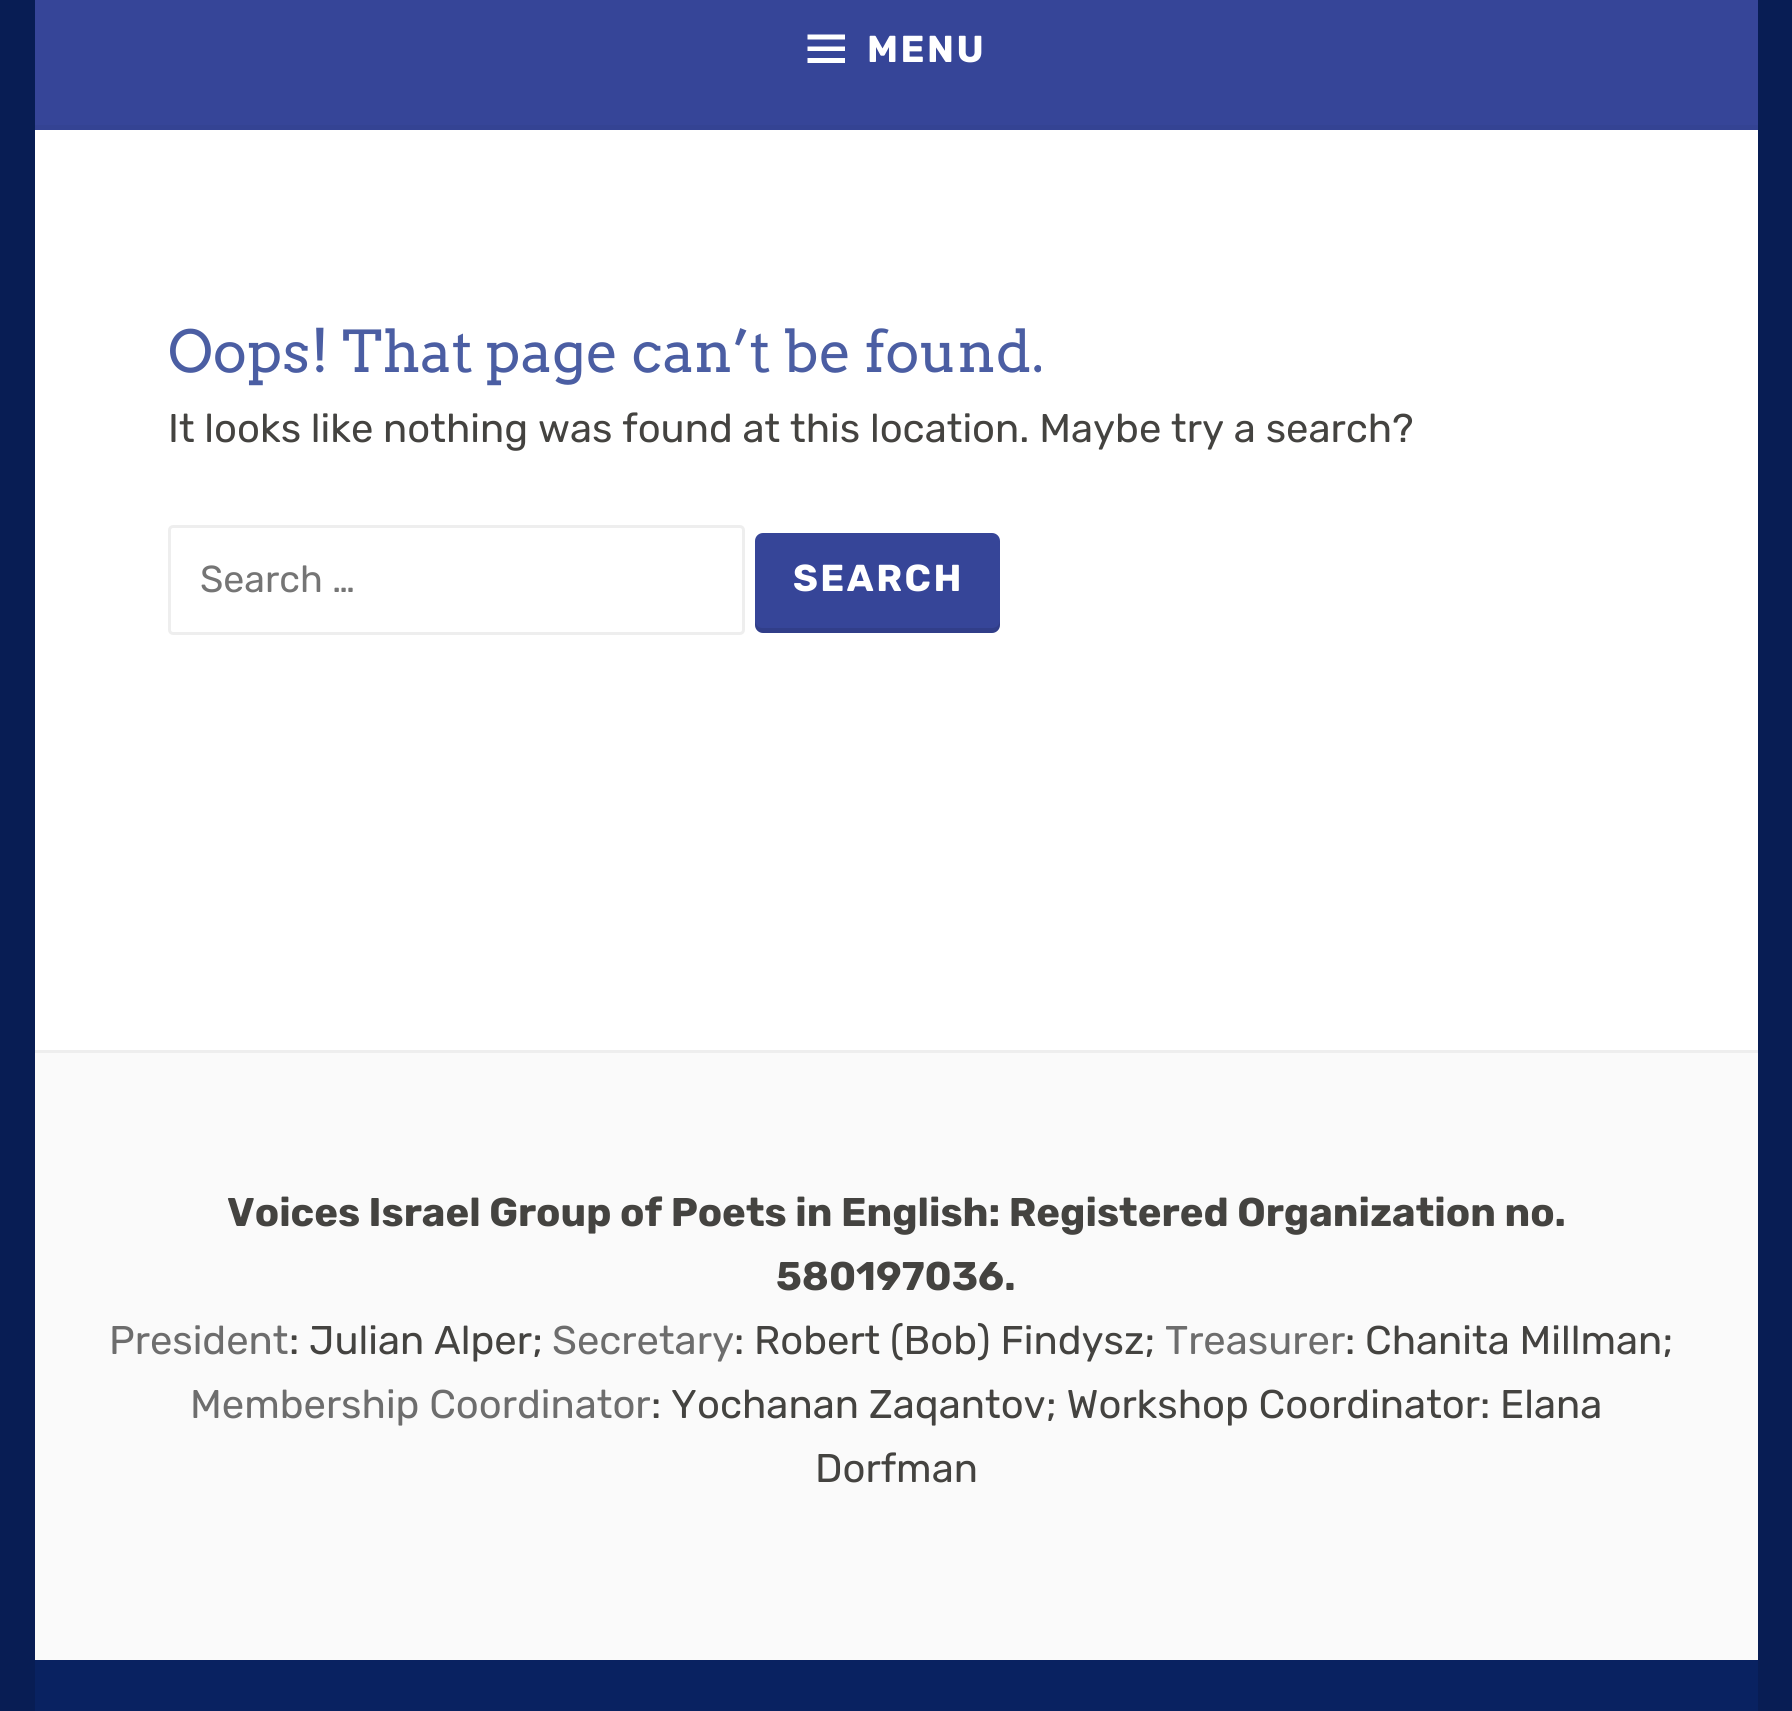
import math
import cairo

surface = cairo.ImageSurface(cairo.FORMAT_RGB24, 1792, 1711)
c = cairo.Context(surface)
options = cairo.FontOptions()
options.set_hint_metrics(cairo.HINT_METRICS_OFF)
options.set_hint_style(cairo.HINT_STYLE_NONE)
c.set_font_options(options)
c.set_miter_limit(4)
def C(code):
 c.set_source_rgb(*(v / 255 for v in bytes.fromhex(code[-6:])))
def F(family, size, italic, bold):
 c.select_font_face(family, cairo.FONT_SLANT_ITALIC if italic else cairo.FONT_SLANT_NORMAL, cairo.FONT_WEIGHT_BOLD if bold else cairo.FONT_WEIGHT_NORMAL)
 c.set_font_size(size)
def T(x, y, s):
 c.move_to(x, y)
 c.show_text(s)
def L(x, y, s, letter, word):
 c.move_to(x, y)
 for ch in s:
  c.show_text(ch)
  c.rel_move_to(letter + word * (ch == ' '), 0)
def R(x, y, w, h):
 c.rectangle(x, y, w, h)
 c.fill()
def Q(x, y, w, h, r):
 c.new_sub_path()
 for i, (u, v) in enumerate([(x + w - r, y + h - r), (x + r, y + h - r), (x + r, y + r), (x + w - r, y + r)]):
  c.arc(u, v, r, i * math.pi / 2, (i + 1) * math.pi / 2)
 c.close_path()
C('081d54')
c.paint()
C('364598')
R(35,0,1723,125)
C('344393')
R(35,125,1723,5)
C('ffffff')
c.new_path()
c.move_to(807.5,63)
c.line_to(807.5,58)
c.line_to(845,58)
c.line_to(845,63)
c.close_path()
c.move_to(807.5,34.5)
c.line_to(845,34.5)
c.line_to(845,39.5)
c.line_to(807.5,39.5)
c.close_path()
c.move_to(807.5,51)
c.line_to(807.5,46.5)
c.line_to(845,46.5)
c.line_to(845,51)
c.close_path()
c.fill()
F('Rubik',37.5,0,1)
L(867,62,'MENU',2.5,0)
R(35,130,1723,920)
F('Arvo',57.5,0,0)
C('4b5ea3')
T(168,372,'Oops! That page can’t be found.')
F('Rubik',40,0,0)
C('444340')
T(168,442,'It looks like nothing was found at this location. Maybe try a search?')
Q(169.5,526.5,574,107,3.5)
C('eeeeee')
c.set_line_width(3)
c.stroke()
F('Rubik',37.5,0,0)
C('757575')
T(200,592,'Search …')
C('364598')
Q(755,533,245,100,8)
c.fill()
c.set_source_rgba(0,0,0,0.1)
c.new_path()
c.move_to(755,620)
c.line_to(755,625)
c.curve_to(755,629,759,633,763,633)
c.line_to(992,633)
c.curve_to(996,633,1000,629,1000,625)
c.line_to(1000,620)
c.curve_to(1000,624,997,628,992,628)
c.line_to(762,628)
c.curve_to(758,628,755,624,755,620)
c.close_path()
c.fill()
F('Rubik',37.5,0,1)
C('ffffff')
L(793,591,'SEARCH',2.5,0)
C('fafafa')
R(35,1053,1723,607)
C('eeeeee')
R(35,1050,1723,3)
F('Rubik',40,0,1)
C('444340')
T(227,1226,'Voices Israel Group of Poets in English: Registered Organization no.')
T(776,1290,'580197036.')
F('Rubik',40,0,0)
C('6d6d6d')
T(109,1354,'President')
C('444340')
T(289,1354,': Julian Alper;')
C('6d6d6d')
T(552,1354,'Secretary')
C('444340')
T(734,1354,': Robert (Bob) Findysz;')
C('6d6d6d')
T(1165,1354,'Treasurer')
C('444340')
T(1345,1354,': Chanita Millman;')
C('6d6d6d')
T(190,1418,'Membership Coordinator')
C('444340')
T(651,1418,': Yochanan Zaqantov; Workshop Coordinator: Elana')
T(815,1482,'Dorfman')
C('092261')
R(35,1660,1723,51)
surface.write_to_png('o.png')
